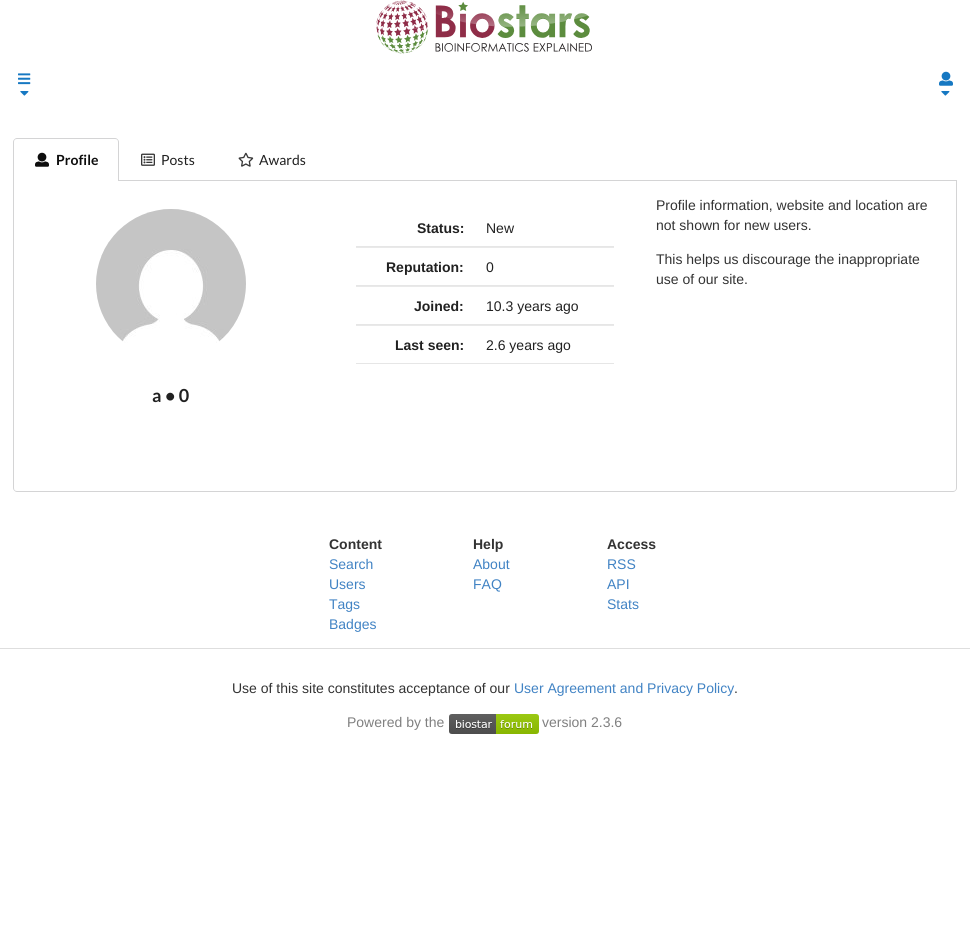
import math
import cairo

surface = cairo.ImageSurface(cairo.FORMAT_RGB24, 970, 947)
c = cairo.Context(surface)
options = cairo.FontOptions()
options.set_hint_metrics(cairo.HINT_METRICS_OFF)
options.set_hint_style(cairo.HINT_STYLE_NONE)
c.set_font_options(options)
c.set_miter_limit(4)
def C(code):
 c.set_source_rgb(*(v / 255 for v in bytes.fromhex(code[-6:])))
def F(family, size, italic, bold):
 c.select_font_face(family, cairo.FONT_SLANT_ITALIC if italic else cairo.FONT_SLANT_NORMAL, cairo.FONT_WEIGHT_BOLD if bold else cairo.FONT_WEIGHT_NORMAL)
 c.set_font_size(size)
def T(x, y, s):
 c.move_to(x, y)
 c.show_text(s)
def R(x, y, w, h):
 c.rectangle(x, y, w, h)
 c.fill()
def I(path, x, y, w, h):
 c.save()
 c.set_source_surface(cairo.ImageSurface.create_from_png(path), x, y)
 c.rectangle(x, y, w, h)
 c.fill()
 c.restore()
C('ffffff')
c.paint()
I('1.png',376,0,216,54)
I('2.png',18,73,13,12)
I('3.png',20,91,9,5)
I('4.png',939,71,14,15)
I('3.png',941,91,9,5)
C('d4d4d5')
R(119,180,838,1)
c.set_fill_rule(cairo.FILL_RULE_EVEN_ODD)
c.new_path()
c.move_to(17,138)
c.line_to(115,138)
c.curve_to(117,138,119,140,119,142)
c.line_to(119,181)
c.line_to(13,181)
c.line_to(13,142)
c.curve_to(13,140,15,138,17,138)
c.close_path()
c.move_to(17,139)
c.line_to(115,139)
c.curve_to(117,139,118,140,118,142)
c.line_to(118,181)
c.line_to(14,181)
c.line_to(14,142)
c.curve_to(14,140,15,139,17,139)
c.close_path()
c.fill()
I('5.png',35,152,14,15)
F('Lato',14,0,1)
C('0d0d0d')
T(56,165,'Profile')
I('6.png',141,153,14,13)
F('Lato',14,0,0)
C('212121')
T(161,165,'Posts')
I('7.png',238,152,16,15)
T(259,165,'Awards')
C('d4d4d5')
c.new_path()
c.move_to(13,181)
c.line_to(957,181)
c.line_to(957,488)
c.curve_to(957,490,955,492,953,492)
c.line_to(17,492)
c.curve_to(15,492,13,490,13,488)
c.close_path()
c.move_to(14,181)
c.line_to(956,181)
c.line_to(956,488)
c.curve_to(956,490,955,491,953,491)
c.line_to(17,491)
c.curve_to(15,491,14,490,14,488)
c.close_path()
c.fill()
C('e6e6e6')
R(356,246,258,1)
F('Liberation Sans',14,0,1)
C('212121')
T(417,233,'Status:')
F('Liberation Sans',14,0,0)
T(486,233,'New')
C('e6e6e6')
R(356,285,258,1)
C('e9e9e9')
R(356,247,258,1)
F('Liberation Sans',14,0,1)
C('212121')
T(386,272,'Reputation:')
F('Liberation Sans',14,0,0)
T(486,272,'0')
C('e6e6e6')
R(356,324,258,1)
C('e9e9e9')
R(356,286,258,1)
F('Liberation Sans',14,0,1)
C('212121')
T(414,311,'Joined:')
F('Liberation Sans',14,0,0)
T(486,311,'10.3 years ago')
C('e6e6e6')
R(356,363,258,1)
C('e9e9e9')
R(356,325,258,1)
F('Liberation Sans',14,0,1)
C('212121')
T(395,350,'Last seen:')
F('Liberation Sans',14,0,0)
T(486,350,'2.6 years ago')
C('333333')
T(656,210,'Profile information, website and location are')
T(656,230,'not shown for new users.')
T(656,264,'This helps us discourage the inappropriate')
T(656,284,'use of our site.')
I('8.png',96,209,150,134)
F('Lato',18,0,1)
C('212121')
T(152,402,'a • 0')
F('Liberation Sans',14,0,1)
C('333333')
T(329,549,'Content')
F('Liberation Sans',14,0,0)
C('4183c4')
T(329,569,'Search')
T(329,589,'Users')
T(329,609,'Tags')
T(329,629,'Badges')
F('Liberation Sans',14,0,1)
C('333333')
T(473,549,'Help')
F('Liberation Sans',14,0,0)
C('4183c4')
T(473,569,'About')
T(473,589,'FAQ')
F('Liberation Sans',14,0,1)
C('333333')
T(607,549,'Access')
F('Liberation Sans',14,0,0)
C('4183c4')
T(607,569,'RSS')
T(607,589,'API')
T(607,609,'Stats')
C('dedede')
R(0,648,970,1)
C('333333')
T(232,693,'Use of this site constitutes acceptance of our')
C('4183c4')
T(514,693,'User Agreement and Privacy Policy')
C('333333')
T(734,693,'.')
C('808080')
T(347,727,'Powered by the')
I('9.png',449,714,90,20)
T(542,727,'version 2.3.6')
surface.write_to_png('o.png')
